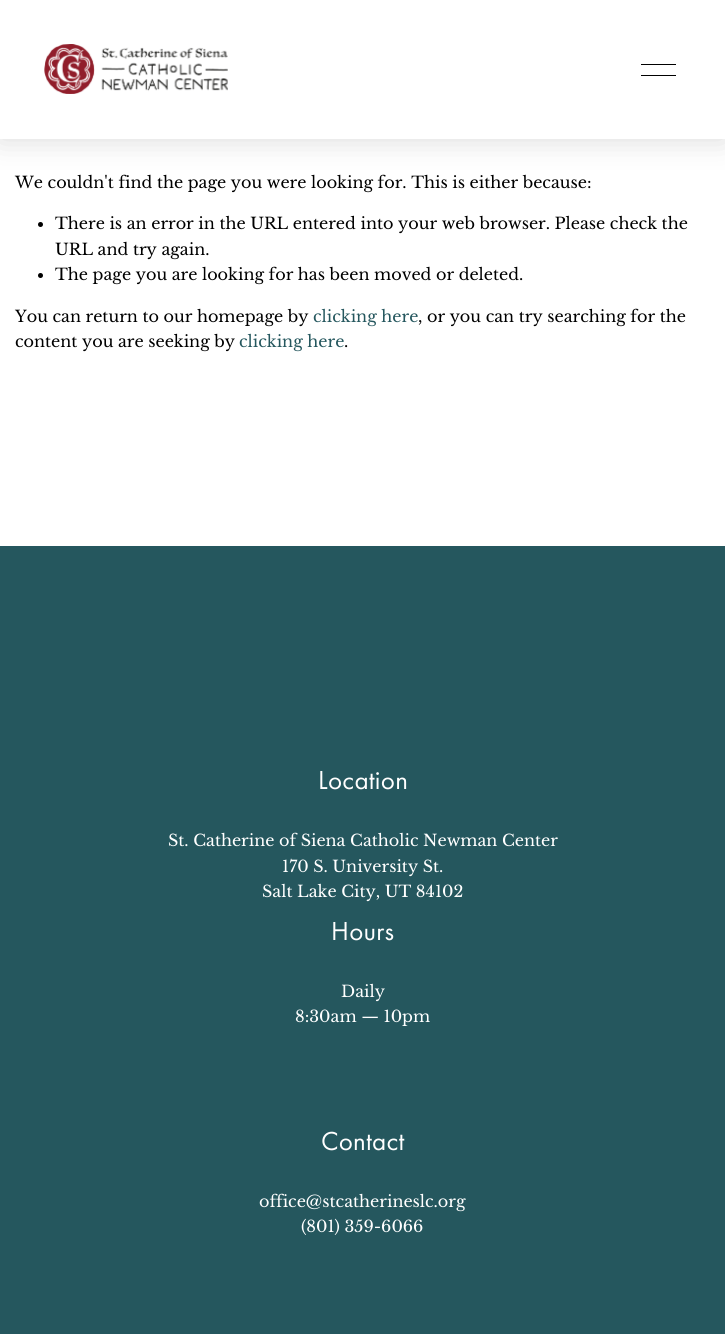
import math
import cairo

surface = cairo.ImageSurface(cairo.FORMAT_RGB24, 725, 1334)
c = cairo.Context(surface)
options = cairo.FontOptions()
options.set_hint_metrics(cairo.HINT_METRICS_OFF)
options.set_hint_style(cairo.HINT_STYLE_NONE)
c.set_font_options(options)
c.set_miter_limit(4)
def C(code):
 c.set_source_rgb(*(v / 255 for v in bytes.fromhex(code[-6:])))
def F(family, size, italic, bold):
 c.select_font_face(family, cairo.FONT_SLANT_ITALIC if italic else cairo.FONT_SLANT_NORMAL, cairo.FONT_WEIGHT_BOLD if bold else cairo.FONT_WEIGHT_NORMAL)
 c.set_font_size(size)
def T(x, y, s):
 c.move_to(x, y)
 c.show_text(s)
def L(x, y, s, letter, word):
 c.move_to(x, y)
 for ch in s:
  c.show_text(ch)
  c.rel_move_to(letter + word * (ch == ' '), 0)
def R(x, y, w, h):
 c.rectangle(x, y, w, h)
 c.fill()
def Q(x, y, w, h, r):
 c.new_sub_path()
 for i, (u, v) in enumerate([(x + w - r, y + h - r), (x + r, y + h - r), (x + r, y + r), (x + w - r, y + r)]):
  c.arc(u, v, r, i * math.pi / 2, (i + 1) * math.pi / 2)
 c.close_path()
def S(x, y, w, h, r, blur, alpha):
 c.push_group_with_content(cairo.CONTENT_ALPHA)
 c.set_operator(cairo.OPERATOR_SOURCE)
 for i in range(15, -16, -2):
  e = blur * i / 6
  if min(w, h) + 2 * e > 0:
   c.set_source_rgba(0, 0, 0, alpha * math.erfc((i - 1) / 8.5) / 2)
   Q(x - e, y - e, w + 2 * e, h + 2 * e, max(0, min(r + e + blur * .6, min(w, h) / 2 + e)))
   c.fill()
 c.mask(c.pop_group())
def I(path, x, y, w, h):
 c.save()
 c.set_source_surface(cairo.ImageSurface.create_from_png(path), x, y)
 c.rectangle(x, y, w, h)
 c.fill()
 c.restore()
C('ffffff')
c.paint()
c.save()
c.rectangle(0,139,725,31)
c.clip()
C('d9d9d9')
S(0,0,725,139,0,15,1)
c.restore()
I('1.png',44,44,184,50)
C('000000')
R(641,64,35,1)
R(641,75,35,1)
F('Libre Baskerville',16,0,0)
T(15,188,'We couldn\'t find the page you were looking for. This is either because:')
c.new_path()
c.arc(40.5,224.5,2.5,0,2 * math.pi)
c.fill()
T(55,229,'There is an error in the URL entered into your web browser. Please check the')
T(55,255,'URL and try again.')
c.new_path()
c.arc(40.5,275.5,2.5,0,2 * math.pi)
c.fill()
T(55,280,'The page you are looking for has been moved or deleted.')
T(15,322,'You can return to our homepage by')
C('25575e')
T(313,322,'clicking here')
C('000000')
T(418,322,', or you can try searching for the')
T(15,347,'content you are seeking by')
C('25575e')
T(239,347,'clicking here')
C('000000')
T(344,347,'.')
C('25575e')
R(0,546,725,788)
F('Futura PT',27,0,0)
C('ffffff')
L(318,789,'Location',.25,0)
F('Libre Baskerville',16,0,0)
T(168,846,'St. Catherine of Siena Catholic Newman Center')
T(282,872,'170 S. University St.')
T(262,897,'Salt Lake City, UT 84102')
F('Futura PT',27,0,0)
L(331,940,'Hours',.25,0)
F('Libre Baskerville',16,0,0)
T(341,997,'Daily')
T(295,1022,'8:30am — 10pm')
F('Futura PT',27,0,0)
L(321,1150,'Contact',.25,0)
F('Libre Baskerville',16,0,0)
T(259,1207,'office@stcatherineslc.org')
T(301,1232,'(801) 359-6066')
surface.write_to_png('o.png')
